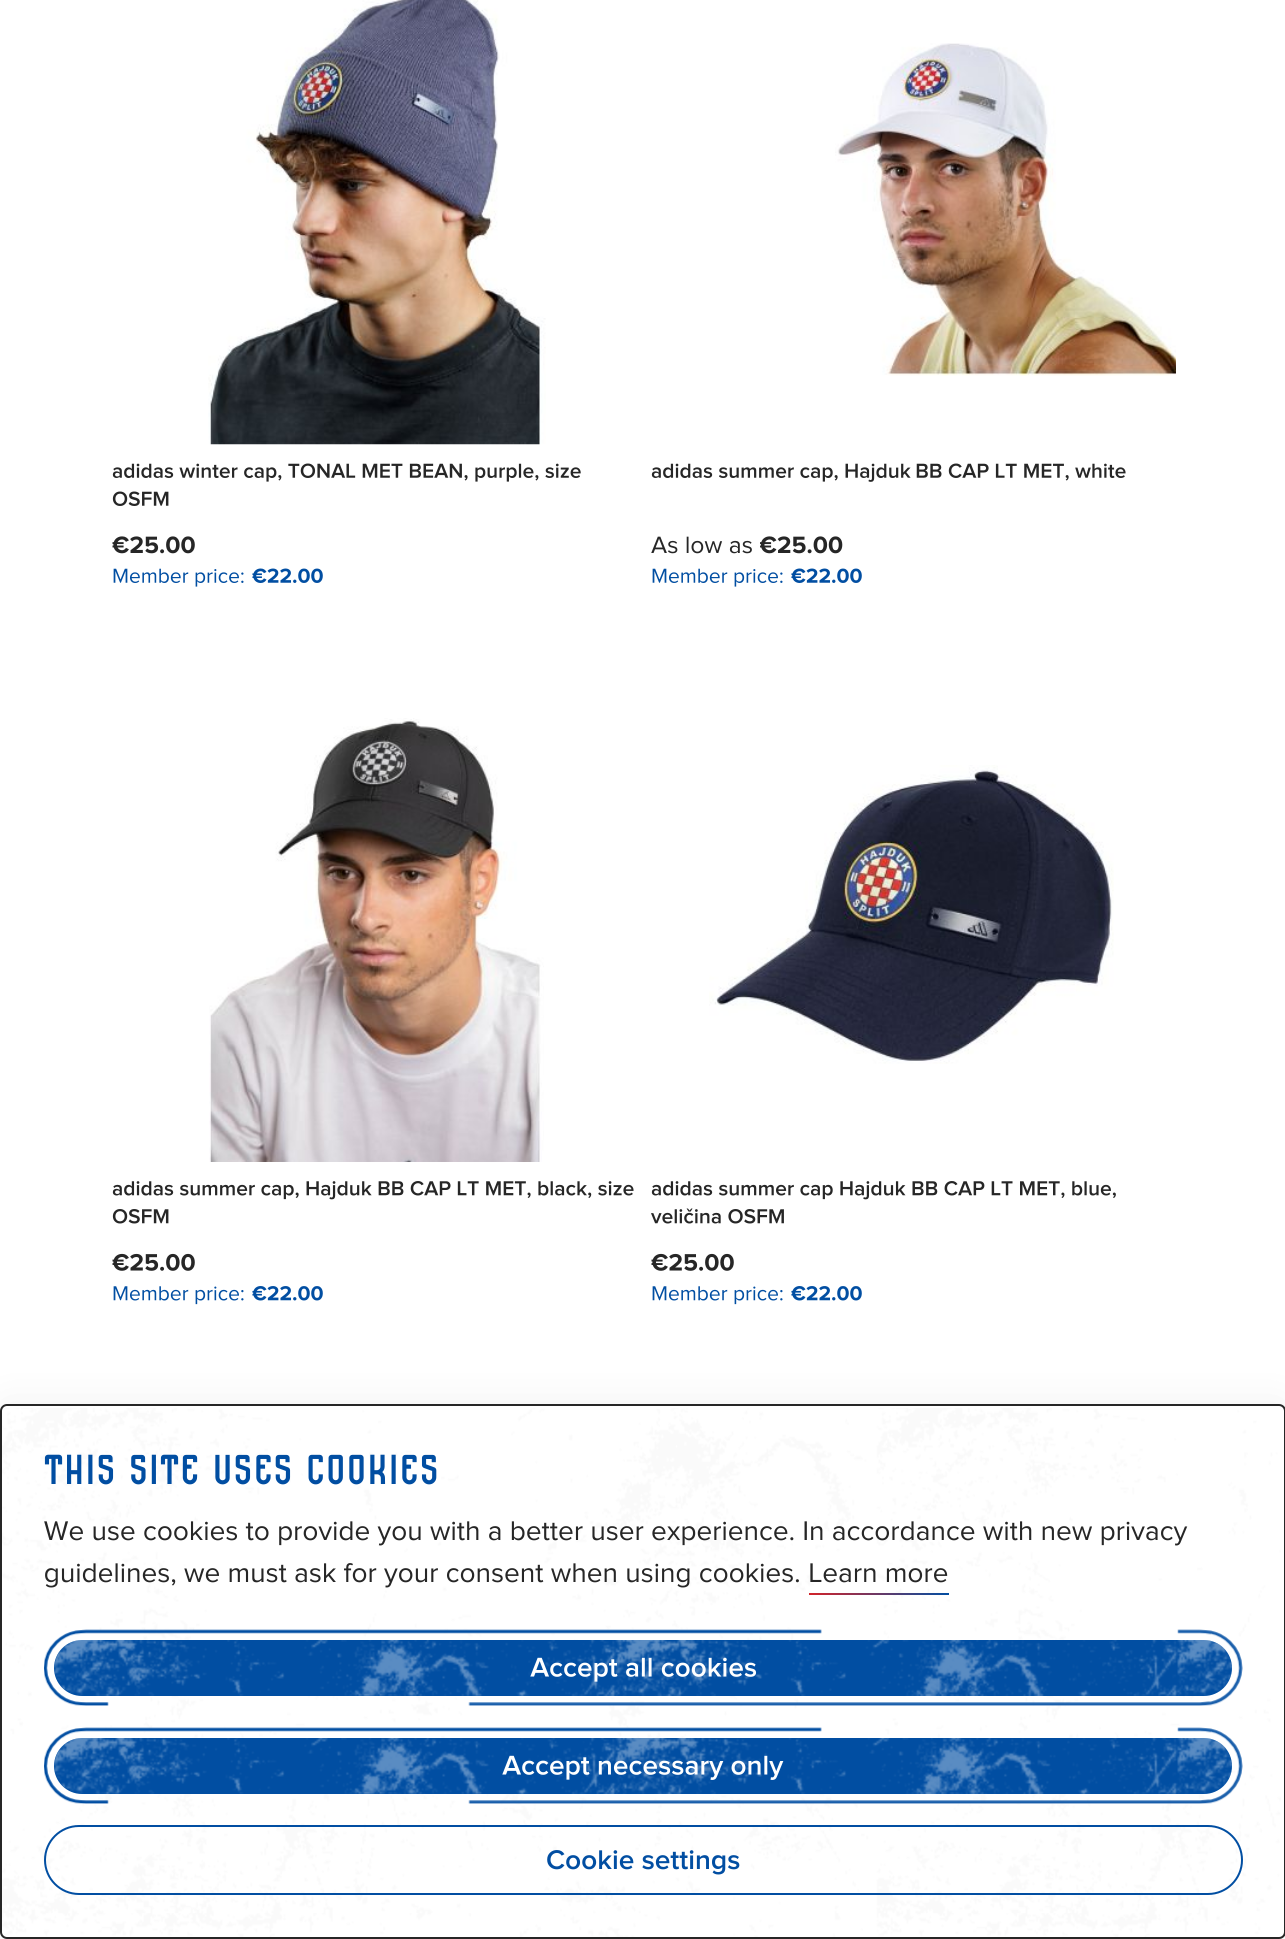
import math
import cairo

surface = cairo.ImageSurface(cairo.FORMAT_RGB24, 1285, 1939)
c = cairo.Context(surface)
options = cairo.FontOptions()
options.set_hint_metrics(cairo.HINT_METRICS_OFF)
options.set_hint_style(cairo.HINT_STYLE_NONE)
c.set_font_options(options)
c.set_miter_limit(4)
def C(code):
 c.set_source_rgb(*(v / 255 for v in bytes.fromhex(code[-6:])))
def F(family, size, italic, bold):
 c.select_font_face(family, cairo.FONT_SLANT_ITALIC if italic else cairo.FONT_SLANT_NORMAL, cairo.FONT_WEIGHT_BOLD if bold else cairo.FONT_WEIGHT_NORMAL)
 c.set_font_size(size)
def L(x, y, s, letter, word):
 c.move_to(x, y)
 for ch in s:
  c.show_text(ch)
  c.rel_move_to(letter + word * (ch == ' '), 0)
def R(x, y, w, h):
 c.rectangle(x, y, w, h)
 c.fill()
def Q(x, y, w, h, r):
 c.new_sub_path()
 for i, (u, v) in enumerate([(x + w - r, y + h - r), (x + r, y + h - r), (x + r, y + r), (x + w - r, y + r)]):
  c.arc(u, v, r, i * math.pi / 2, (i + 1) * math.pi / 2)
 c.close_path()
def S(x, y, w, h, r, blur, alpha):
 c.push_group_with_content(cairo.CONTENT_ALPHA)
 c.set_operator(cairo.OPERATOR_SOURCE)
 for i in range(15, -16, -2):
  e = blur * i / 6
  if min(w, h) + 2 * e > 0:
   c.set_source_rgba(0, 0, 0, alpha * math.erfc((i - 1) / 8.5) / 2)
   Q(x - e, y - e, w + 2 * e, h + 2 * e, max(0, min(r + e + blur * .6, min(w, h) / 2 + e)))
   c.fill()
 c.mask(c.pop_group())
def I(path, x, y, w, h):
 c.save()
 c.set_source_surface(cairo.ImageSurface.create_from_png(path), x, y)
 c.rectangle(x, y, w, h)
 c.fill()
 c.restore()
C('ffffff')
c.paint()
I('1.png',208,0,338,445)
I('2.png',112,463,469,19)
I('3.png',112,491,57,15)
I('4.png',112,536,83,18)
I('5.png',113,568,131,19)
I('6.png',252,568,71,15)
I('7.png',835,43,341,333)
I('8.png',651,463,260,19)
I('9.png',916,463,210,18)
I('10.png',651,536,101,18)
I('11.png',760,536,83,18)
I('5.png',652,568,131,19)
I('6.png',791,568,71,15)
I('12.png',209,718,335,444)
I('13.png',112,1181,522,19)
I('14.png',112,1209,57,15)
I('15.png',112,1253,83,18)
I('16.png',113,1286,131,19)
I('17.png',252,1286,71,15)
I('18.png',709,765,405,299)
I('19.png',651,1181,465,19)
I('20.png',651,1208,133,16)
I('15.png',651,1253,83,18)
I('16.png',652,1286,131,19)
I('17.png',791,1286,71,15)
C('000000')
S(0,1404,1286,535,7,21,.06)
C('ffffff')
Q(0,1404,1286,535,7)
c.fill()
I('21.png',2,1408,1279,529)
Q(1,1405,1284,533,6)
C('262626')
c.stroke()
F('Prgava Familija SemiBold',42,0,0)
C('014ea2')
L(44,1484,'This site uses cookies',1.25,0)
I('22.png',44,1521,1144,25)
I('23.png',45,1563,754,25)
I('24.png',810,1563,138,20)
gradient = cairo.LinearGradient(809,1593,949,1593)
gradient.add_color_stop_rgba(0,0.824,0.137,0.165,1)
gradient.add_color_stop_rgba(1,0.004,0.306,0.635,1)
c.set_source(gradient)
R(809,1593,140,2)
C('014ea2')
Q(54,1640,1178,56,28)
c.fill()
I('26.png',54,1640,1178,56)
I('25.png',44,1629,1199,77)
I('27.png',530,1657,227,25)
Q(54,1738,1178,56,28)
c.fill()
I('29.png',54,1738,1178,56)
I('28.png',44,1727,1199,77)
I('30.png',502,1755,282,25)
Q(45,1826,1197,68,34)
c.stroke()
I('31.png',547,1850,193,25)
surface.write_to_png('o.png')
